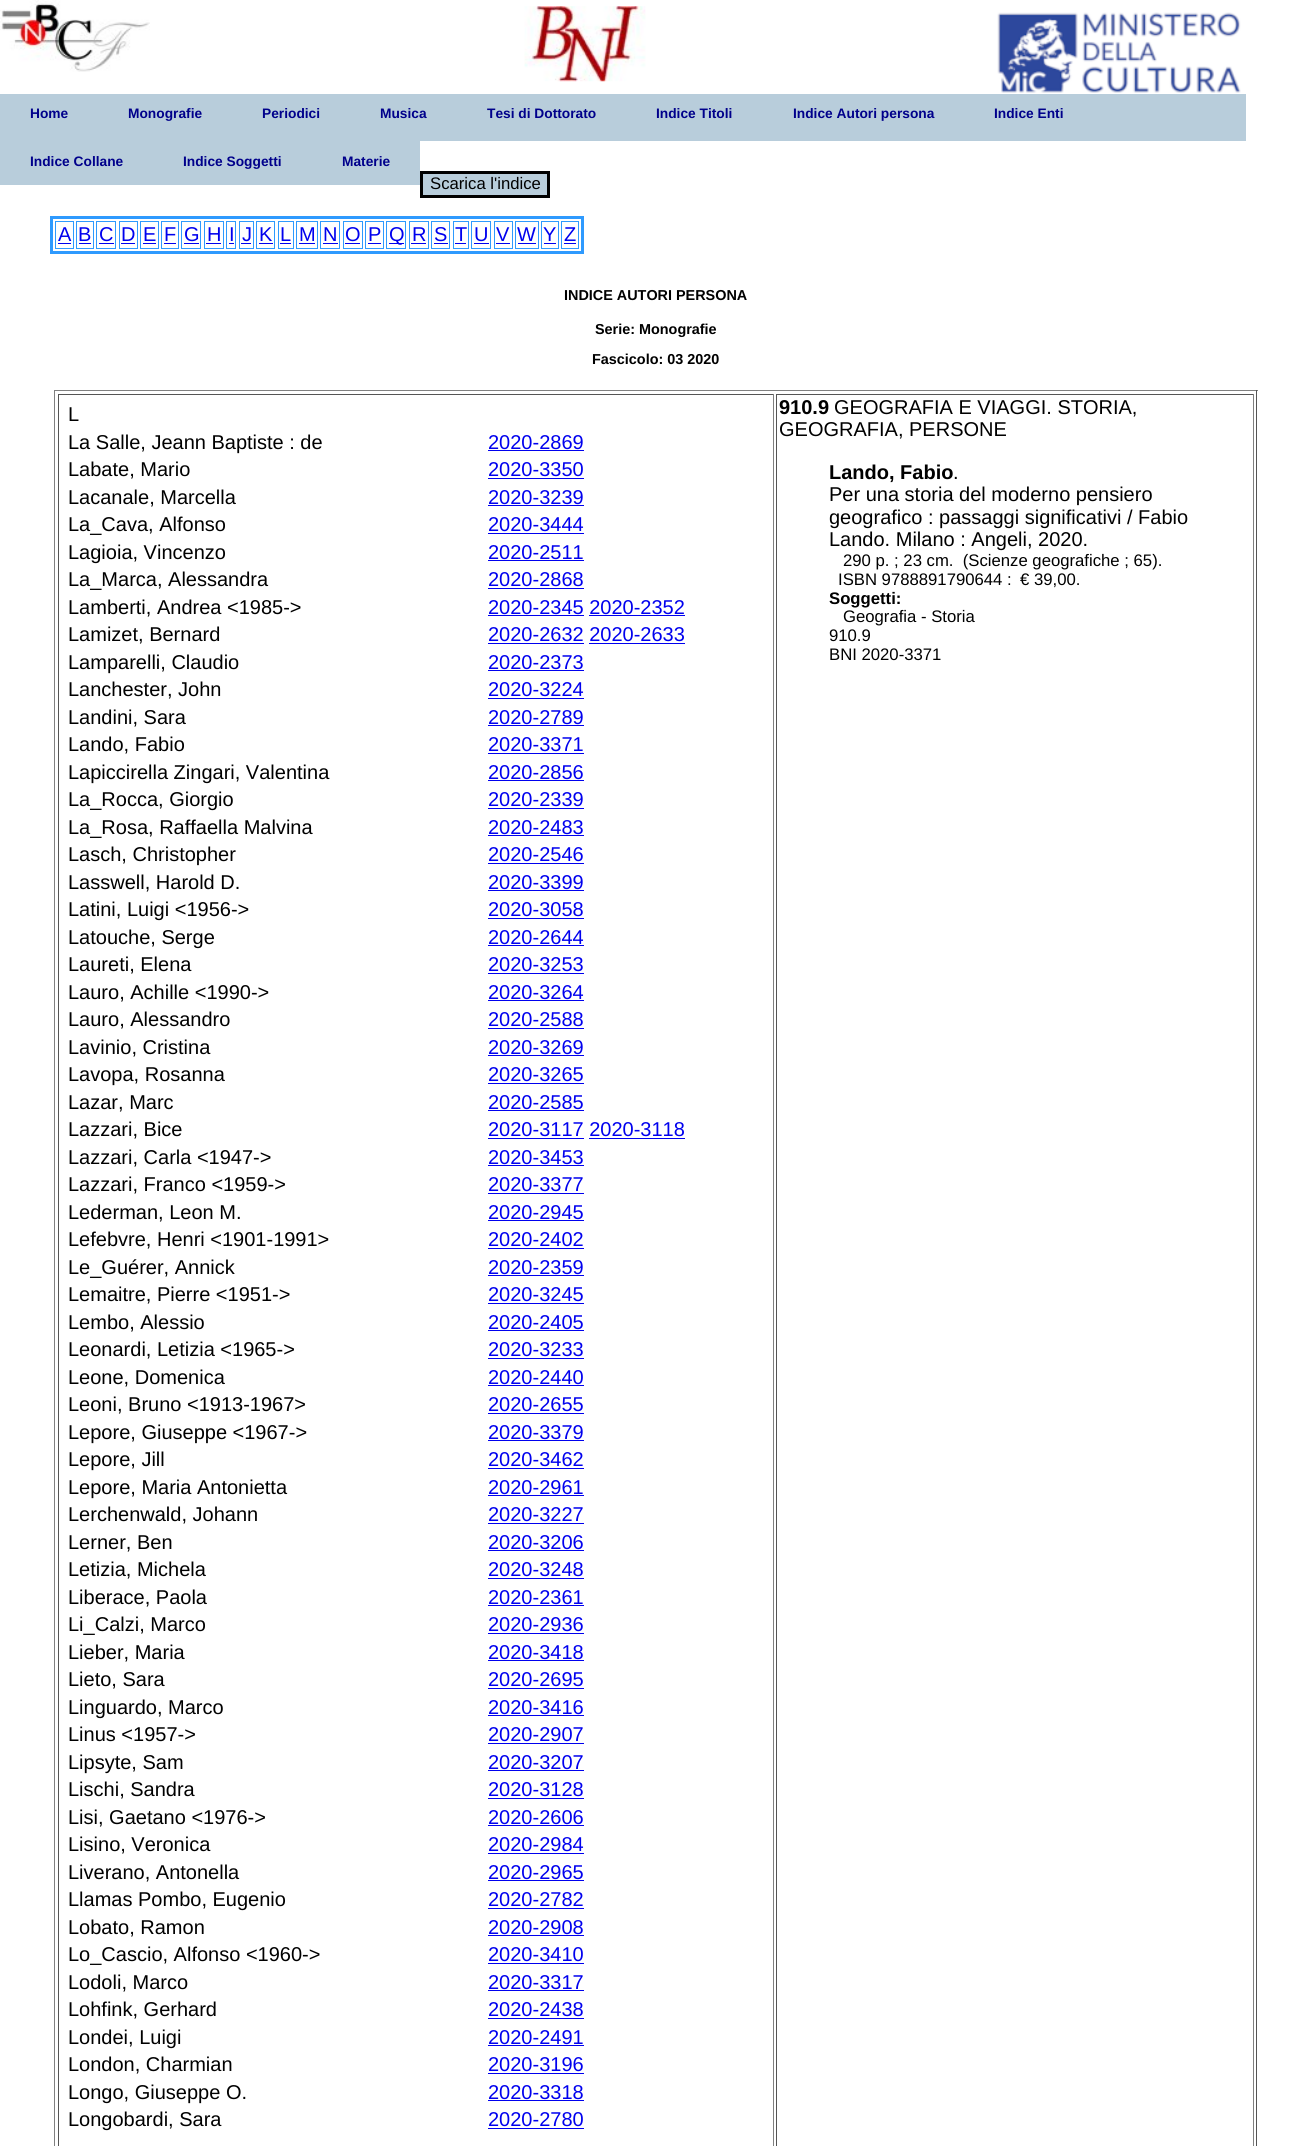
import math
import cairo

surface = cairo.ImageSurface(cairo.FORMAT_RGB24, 1311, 2146)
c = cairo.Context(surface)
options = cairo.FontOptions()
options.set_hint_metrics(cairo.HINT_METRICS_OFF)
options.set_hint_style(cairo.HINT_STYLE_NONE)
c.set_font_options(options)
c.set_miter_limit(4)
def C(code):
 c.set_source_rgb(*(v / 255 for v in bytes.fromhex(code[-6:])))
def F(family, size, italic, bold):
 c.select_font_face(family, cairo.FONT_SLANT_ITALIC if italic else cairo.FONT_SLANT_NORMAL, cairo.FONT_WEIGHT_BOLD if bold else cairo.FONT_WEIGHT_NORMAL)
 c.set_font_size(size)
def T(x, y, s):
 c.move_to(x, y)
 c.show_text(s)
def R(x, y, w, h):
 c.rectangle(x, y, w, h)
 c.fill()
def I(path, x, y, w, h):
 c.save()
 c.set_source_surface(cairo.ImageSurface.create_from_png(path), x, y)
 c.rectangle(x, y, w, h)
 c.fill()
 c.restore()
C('ffffff')
c.paint()
I('1.png',0,0,150,72)
I('2.png',524,6,122,76)
I('3.png',997,12,244,81)
C('b8cddb')
R(0,94,1246,47)
F('Liberation Sans',13.75,0,1)
C('00008b')
T(30,118,'Home')
T(128,118,'Monografie')
T(262,118,'Periodici')
T(380,118,'Musica')
T(487,118,'Tesi di Dottorato')
T(656,118,'Indice Titoli')
T(793,118,'Indice Autori persona')
T(994,118,'Indice Enti')
C('b8cddb')
R(0,141,420,44)
C('00008b')
T(30,166,'Indice Collane')
T(183,166,'Indice Soggetti')
T(342,166,'Materie')
C('b8cddb')
c.rectangle(421.5,172.5,127,24)
c.fill_preserve()
C('000000')
c.set_line_width(3)
c.stroke()
F('Liberation Sans',16.7,0,0)
T(430,189,'Scarica l\'indice')
c.rectangle(51.5,217.5,531,35)
C('2e9afe')
c.stroke()
c.rectangle(55.5,221.5,18,27)
c.set_line_width(1)
c.stroke()
F('Liberation Sans',20,0,0)
C('0000ee')
T(58,241,'A')
R(58,243,13,1)
c.rectangle(76.5,221.5,17,27)
C('2e9afe')
c.stroke()
C('0000ee')
T(78,241,'B')
R(79,243,12,1)
c.rectangle(96.5,221.5,19,27)
C('2e9afe')
c.stroke()
C('0000ee')
T(99,241,'C')
R(99,243,15,1)
c.rectangle(119.5,221.5,18,27)
C('2e9afe')
c.stroke()
C('0000ee')
T(121,241,'D')
R(121,243,14,1)
c.rectangle(140.5,221.5,18,27)
C('2e9afe')
c.stroke()
C('0000ee')
T(143,241,'E')
R(143,243,13,1)
c.rectangle(161.5,221.5,17,27)
C('2e9afe')
c.stroke()
C('0000ee')
T(164,241,'F')
R(164,243,12,1)
c.rectangle(181.5,221.5,19,27)
C('2e9afe')
c.stroke()
C('0000ee')
T(184,241,'G')
R(184,243,15,1)
c.rectangle(204.5,221.5,19,27)
C('2e9afe')
c.stroke()
C('0000ee')
T(207,241,'H')
R(206,243,15,1)
c.rectangle(226.5,221.5,9,27)
C('2e9afe')
c.stroke()
C('0000ee')
T(229,241,'I')
R(229,243,5,1)
c.rectangle(239.5,221.5,14,27)
C('2e9afe')
c.stroke()
C('0000ee')
T(242,241,'J')
R(241,243,10,1)
c.rectangle(256.5,221.5,18,27)
C('2e9afe')
c.stroke()
C('0000ee')
T(259,241,'K')
R(259,243,14,1)
c.rectangle(278.5,221.5,15,27)
C('2e9afe')
c.stroke()
C('0000ee')
T(280,241,'L')
R(280,243,11,1)
c.rectangle(296.5,221.5,21,27)
C('2e9afe')
c.stroke()
C('0000ee')
T(299,241,'M')
R(299,243,16,1)
c.rectangle(320.5,221.5,19,27)
C('2e9afe')
c.stroke()
C('0000ee')
T(323,241,'N')
R(323,243,15,1)
c.rectangle(343.5,221.5,19,27)
C('2e9afe')
c.stroke()
C('0000ee')
T(345,241,'O')
R(345,243,15,1)
c.rectangle(365.5,221.5,18,27)
C('2e9afe')
c.stroke()
C('0000ee')
T(368,241,'P')
R(368,243,13,1)
c.rectangle(386.5,221.5,19,27)
C('2e9afe')
c.stroke()
C('0000ee')
R(389,243,15,1)
T(389,241,'Q')
c.rectangle(409.5,221.5,19,27)
C('2e9afe')
c.stroke()
C('0000ee')
T(412,241,'R')
R(411,243,15,1)
c.rectangle(431.5,221.5,18,27)
C('2e9afe')
c.stroke()
C('0000ee')
T(434,241,'S')
R(434,243,14,1)
c.rectangle(453.5,221.5,15,27)
C('2e9afe')
c.stroke()
C('0000ee')
T(455,241,'T')
R(455,243,11,1)
c.rectangle(471.5,221.5,19,27)
C('2e9afe')
c.stroke()
C('0000ee')
T(474,241,'U')
R(474,243,15,1)
c.rectangle(494.5,221.5,18,27)
C('2e9afe')
c.stroke()
C('0000ee')
T(496,241,'V')
R(496,243,14,1)
c.rectangle(515.5,221.5,23,27)
C('2e9afe')
c.stroke()
C('0000ee')
T(517,241,'W')
R(518,243,18,1)
c.rectangle(541.5,221.5,17,27)
C('2e9afe')
c.stroke()
C('0000ee')
T(543,241,'Y')
R(544,243,12,1)
c.rectangle(561.5,221.5,17,27)
C('2e9afe')
c.stroke()
C('0000ee')
T(564,241,'Z')
R(564,243,12,1)
F('Liberation Sans',14.4,0,1)
C('000000')
T(564,300,'INDICE AUTORI PERSONA')
T(595,334,'Serie: Monografie')
T(592,364,'Fascicolo: 03 2020')
C('808080')
R(54,390,1204,1)
C('555555')
R(1256,390,1,1756)
C('808080')
R(54,390,1,1756)
C('555555')
R(58,394,716,1)
C('808080')
R(773,394,1,1752)
C('555555')
R(58,394,1,1752)
F('Liberation Sans',20,0,0)
C('000000')
T(68,421,'L')
T(68,449,'La Salle, Jeann Baptiste : de')
C('0000ee')
T(488,449,'2020-2869')
R(488,450,96,1)
C('000000')
T(68,476,'Labate, Mario')
C('0000ee')
T(488,476,'2020-3350')
R(488,478,96,1)
C('000000')
T(68,504,'Lacanale, Marcella')
C('0000ee')
T(488,504,'2020-3239')
R(488,505,96,1)
C('000000')
T(68,531,'La_Cava, Alfonso')
C('0000ee')
T(488,531,'2020-3444')
R(488,533,96,1)
C('000000')
T(68,559,'Lagioia, Vincenzo')
C('0000ee')
T(488,559,'2020-2511')
R(488,560,96,1)
C('000000')
T(68,586,'La_Marca, Alessandra')
C('0000ee')
T(488,586,'2020-2868')
R(488,588,96,1)
C('000000')
T(68,614,'Lamberti, Andrea <1985->')
C('0000ee')
T(488,614,'2020-2345 2020-2352')
R(488,615,96,1)
R(589,615,96,1)
C('000000')
T(68,641,'Lamizet, Bernard')
C('0000ee')
T(488,641,'2020-2632 2020-2633')
R(488,643,96,1)
R(589,643,96,1)
C('000000')
T(68,669,'Lamparelli, Claudio')
C('0000ee')
T(488,669,'2020-2373')
R(488,670,96,1)
C('000000')
T(68,696,'Lanchester, John')
C('0000ee')
T(488,696,'2020-3224')
R(488,698,96,1)
C('000000')
T(68,724,'Landini, Sara')
C('0000ee')
T(488,724,'2020-2789')
R(488,725,96,1)
C('000000')
T(68,751,'Lando, Fabio')
C('0000ee')
T(488,751,'2020-3371')
R(488,753,96,1)
C('000000')
T(68,779,'Lapiccirella Zingari, Valentina')
C('0000ee')
T(488,779,'2020-2856')
R(488,780,96,1)
C('000000')
T(68,806,'La_Rocca, Giorgio')
C('0000ee')
T(488,806,'2020-2339')
R(488,808,96,1)
C('000000')
T(68,834,'La_Rosa, Raffaella Malvina')
C('0000ee')
T(488,834,'2020-2483')
R(488,835,96,1)
C('000000')
T(68,861,'Lasch, Christopher')
C('0000ee')
T(488,861,'2020-2546')
R(488,863,96,1)
C('000000')
T(68,889,'Lasswell, Harold D.')
C('0000ee')
T(488,889,'2020-3399')
R(488,890,96,1)
C('000000')
T(68,916,'Latini, Luigi <1956->')
C('0000ee')
T(488,916,'2020-3058')
R(488,918,96,1)
C('000000')
T(68,944,'Latouche, Serge')
C('0000ee')
T(488,944,'2020-2644')
R(488,945,96,1)
C('000000')
T(68,971,'Laureti, Elena')
C('0000ee')
T(488,971,'2020-3253')
R(488,973,96,1)
C('000000')
T(68,999,'Lauro, Achille <1990->')
C('0000ee')
T(488,999,'2020-3264')
R(488,1000,96,1)
C('000000')
T(68,1026,'Lauro, Alessandro')
C('0000ee')
T(488,1026,'2020-2588')
R(488,1028,96,1)
C('000000')
T(68,1054,'Lavinio, Cristina')
C('0000ee')
T(488,1054,'2020-3269')
R(488,1055,96,1)
C('000000')
T(68,1081,'Lavopa, Rosanna')
C('0000ee')
T(488,1081,'2020-3265')
R(488,1083,96,1)
C('000000')
T(68,1109,'Lazar, Marc')
C('0000ee')
T(488,1109,'2020-2585')
R(488,1110,96,1)
C('000000')
T(68,1136,'Lazzari, Bice')
C('0000ee')
T(488,1136,'2020-3117 2020-3118')
R(488,1138,96,1)
R(589,1138,96,1)
C('000000')
T(68,1164,'Lazzari, Carla <1947->')
C('0000ee')
T(488,1164,'2020-3453')
R(488,1165,96,1)
C('000000')
T(68,1191,'Lazzari, Franco <1959->')
C('0000ee')
T(488,1191,'2020-3377')
R(488,1193,96,1)
C('000000')
T(68,1219,'Lederman, Leon M.')
C('0000ee')
T(488,1219,'2020-2945')
R(488,1220,96,1)
C('000000')
T(68,1246,'Lefebvre, Henri <1901-1991>')
C('0000ee')
T(488,1246,'2020-2402')
R(488,1248,96,1)
C('000000')
T(68,1274,'Le_Guérer, Annick')
C('0000ee')
T(488,1274,'2020-2359')
R(488,1275,96,1)
C('000000')
T(68,1301,'Lemaitre, Pierre <1951->')
C('0000ee')
T(488,1301,'2020-3245')
R(488,1303,96,1)
C('000000')
T(68,1329,'Lembo, Alessio')
C('0000ee')
T(488,1329,'2020-2405')
R(488,1330,96,1)
C('000000')
T(68,1356,'Leonardi, Letizia <1965->')
C('0000ee')
T(488,1356,'2020-3233')
R(488,1358,96,1)
C('000000')
T(68,1384,'Leone, Domenica')
C('0000ee')
T(488,1384,'2020-2440')
R(488,1385,96,1)
C('000000')
T(68,1411,'Leoni, Bruno <1913-1967>')
C('0000ee')
T(488,1411,'2020-2655')
R(488,1413,96,1)
C('000000')
T(68,1439,'Lepore, Giuseppe <1967->')
C('0000ee')
T(488,1439,'2020-3379')
R(488,1440,96,1)
C('000000')
T(68,1466,'Lepore, Jill')
C('0000ee')
T(488,1466,'2020-3462')
R(488,1468,96,1)
C('000000')
T(68,1494,'Lepore, Maria Antonietta')
C('0000ee')
T(488,1494,'2020-2961')
R(488,1495,96,1)
C('000000')
T(68,1521,'Lerchenwald, Johann')
C('0000ee')
T(488,1521,'2020-3227')
R(488,1523,96,1)
C('000000')
T(68,1549,'Lerner, Ben')
C('0000ee')
T(488,1549,'2020-3206')
R(488,1550,96,1)
C('000000')
T(68,1576,'Letizia, Michela')
C('0000ee')
T(488,1576,'2020-3248')
R(488,1578,96,1)
C('000000')
T(68,1604,'Liberace, Paola')
C('0000ee')
T(488,1604,'2020-2361')
R(488,1605,96,1)
C('000000')
T(68,1631,'Li_Calzi, Marco')
C('0000ee')
T(488,1631,'2020-2936')
R(488,1633,96,1)
C('000000')
T(68,1659,'Lieber, Maria')
C('0000ee')
T(488,1659,'2020-3418')
R(488,1660,96,1)
C('000000')
T(68,1686,'Lieto, Sara')
C('0000ee')
T(488,1686,'2020-2695')
R(488,1688,96,1)
C('000000')
T(68,1714,'Linguardo, Marco')
C('0000ee')
T(488,1714,'2020-3416')
R(488,1715,96,1)
C('000000')
T(68,1741,'Linus <1957->')
C('0000ee')
T(488,1741,'2020-2907')
R(488,1743,96,1)
C('000000')
T(68,1769,'Lipsyte, Sam')
C('0000ee')
T(488,1769,'2020-3207')
R(488,1770,96,1)
C('000000')
T(68,1796,'Lischi, Sandra')
C('0000ee')
T(488,1796,'2020-3128')
R(488,1798,96,1)
C('000000')
T(68,1824,'Lisi, Gaetano <1976->')
C('0000ee')
T(488,1824,'2020-2606')
R(488,1825,96,1)
C('000000')
T(68,1851,'Lisino, Veronica')
C('0000ee')
T(488,1851,'2020-2984')
R(488,1853,96,1)
C('000000')
T(68,1879,'Liverano, Antonella')
C('0000ee')
T(488,1879,'2020-2965')
R(488,1880,96,1)
C('000000')
T(68,1906,'Llamas Pombo, Eugenio')
C('0000ee')
T(488,1906,'2020-2782')
R(488,1908,96,1)
C('000000')
T(68,1934,'Lobato, Ramon')
C('0000ee')
T(488,1934,'2020-2908')
R(488,1935,96,1)
C('000000')
T(68,1961,'Lo_Cascio, Alfonso <1960->')
C('0000ee')
T(488,1961,'2020-3410')
R(488,1963,96,1)
C('000000')
T(68,1989,'Lodoli, Marco')
C('0000ee')
T(488,1989,'2020-3317')
R(488,1990,96,1)
C('000000')
T(68,2016,'Lohfink, Gerhard')
C('0000ee')
T(488,2016,'2020-2438')
R(488,2018,96,1)
C('000000')
T(68,2044,'Londei, Luigi')
C('0000ee')
T(488,2044,'2020-2491')
R(488,2045,96,1)
C('000000')
T(68,2071,'London, Charmian')
C('0000ee')
T(488,2071,'2020-3196')
R(488,2073,96,1)
C('000000')
T(68,2099,'Longo, Giuseppe O.')
C('0000ee')
T(488,2099,'2020-3318')
R(488,2100,96,1)
C('000000')
T(68,2126,'Longobardi, Sara')
C('0000ee')
T(488,2126,'2020-2780')
R(488,2128,96,1)
C('555555')
R(776,394,478,1)
C('808080')
R(1253,394,1,1752)
C('555555')
R(776,394,1,1752)
F('Liberation Sans',20,0,1)
C('000000')
T(779,414,'910.9')
F('Liberation Sans',20,0,0)
T(834,414,'GEOGRAFIA E VIAGGI. STORIA,')
T(779,436,'GEOGRAFIA, PERSONE')
F('Liberation Sans',20,0,1)
T(829,479,'Lando, Fabio')
F('Liberation Sans',20,0,0)
T(953,479,'.')
T(829,501,'Per una storia del moderno pensiero')
T(829,524,'geografico : passaggi significativi / Fabio')
T(829,546,'Lando. Milano : Angeli, 2020.')
F('Liberation Sans',16.7,0,0)
T(843,566,'290 p. ; 23 cm.  (Scienze geografiche ; 65).')
T(838,585,'ISBN 9788891790644 :')
T(1020,585,'€ 39,00.')
F('Liberation Sans',16.7,0,1)
T(829,604,'Soggetti:')
F('Liberation Sans',16.7,0,0)
T(843,622,'Geografia - Storia')
T(829,641,'910.9')
T(829,660,'BNI 2020-3371')
surface.write_to_png('o.png')
